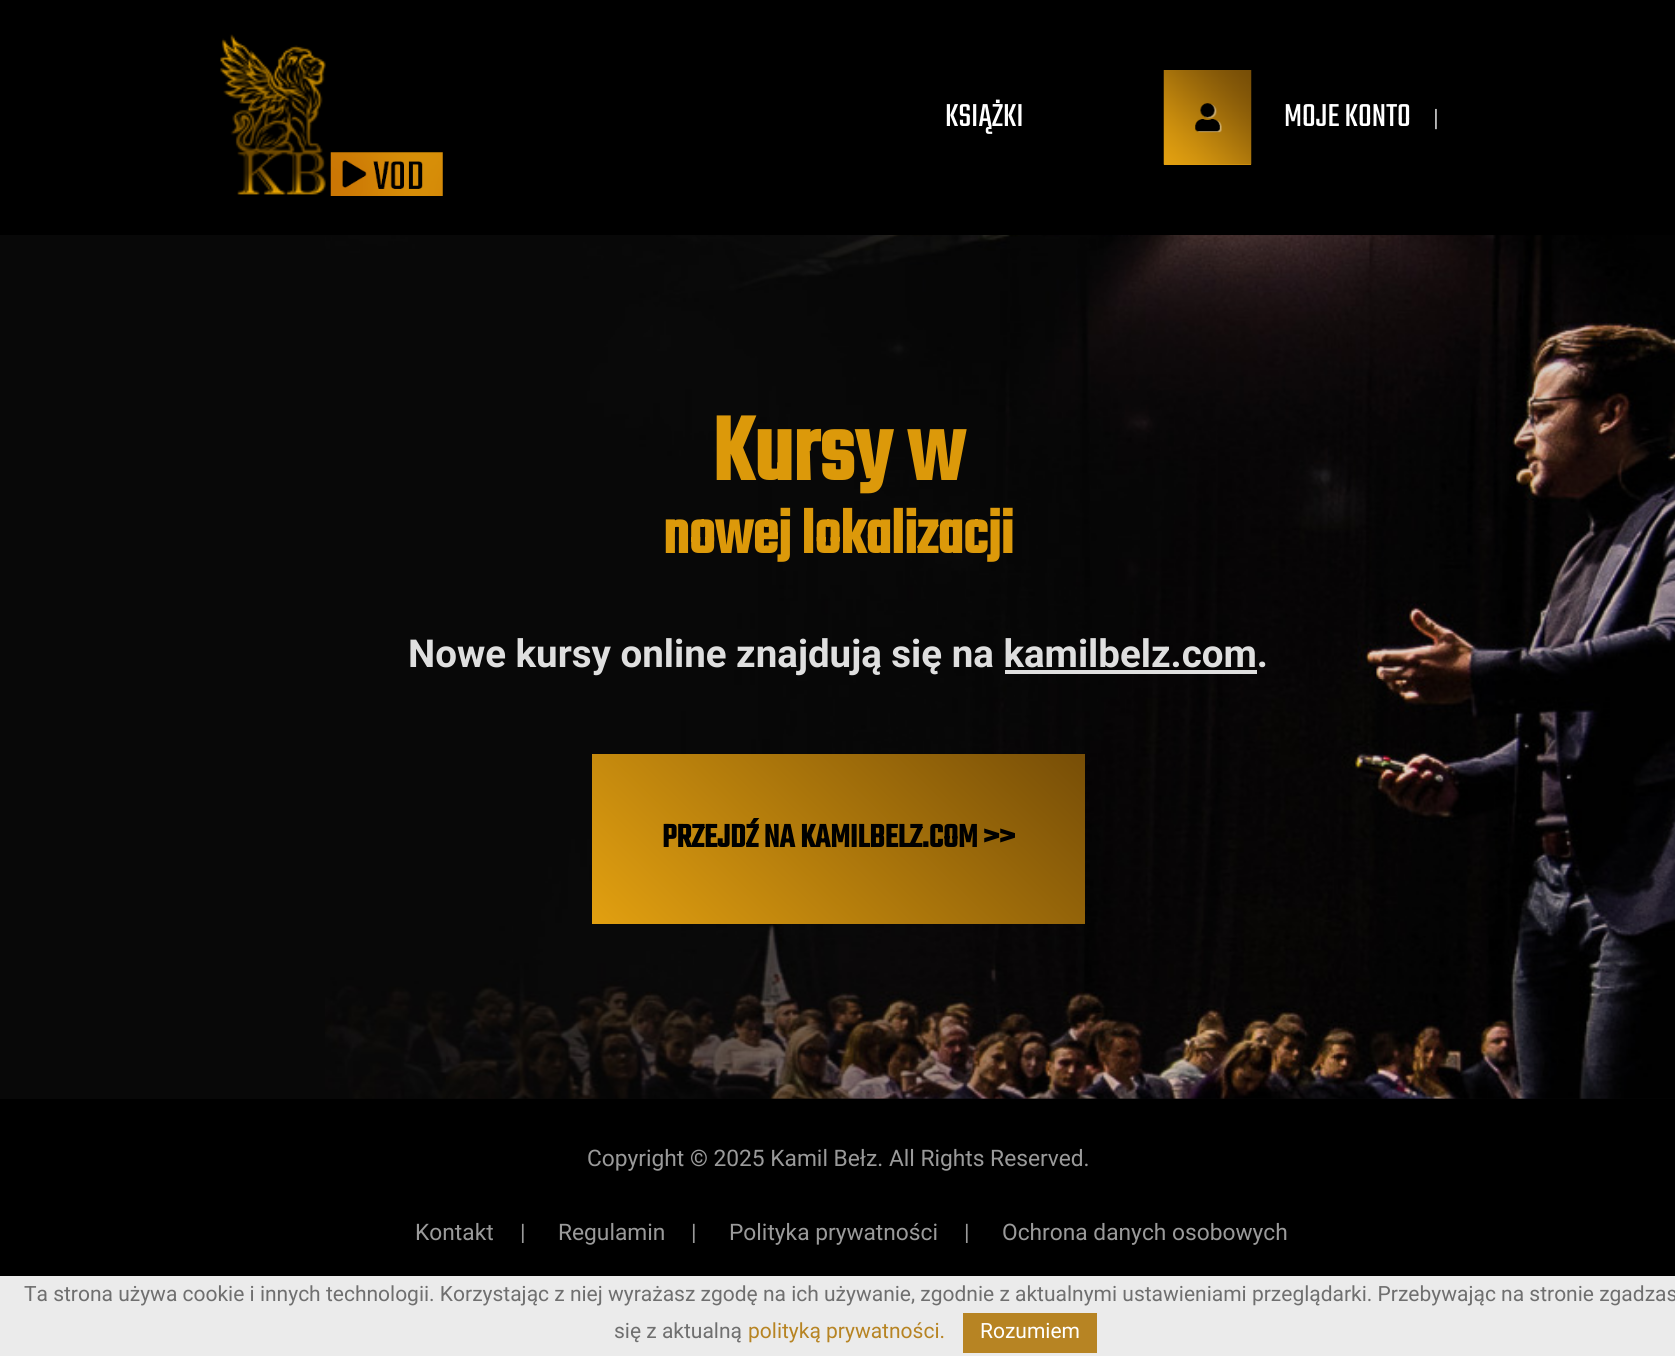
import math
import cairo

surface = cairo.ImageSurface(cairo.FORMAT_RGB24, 1675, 1356)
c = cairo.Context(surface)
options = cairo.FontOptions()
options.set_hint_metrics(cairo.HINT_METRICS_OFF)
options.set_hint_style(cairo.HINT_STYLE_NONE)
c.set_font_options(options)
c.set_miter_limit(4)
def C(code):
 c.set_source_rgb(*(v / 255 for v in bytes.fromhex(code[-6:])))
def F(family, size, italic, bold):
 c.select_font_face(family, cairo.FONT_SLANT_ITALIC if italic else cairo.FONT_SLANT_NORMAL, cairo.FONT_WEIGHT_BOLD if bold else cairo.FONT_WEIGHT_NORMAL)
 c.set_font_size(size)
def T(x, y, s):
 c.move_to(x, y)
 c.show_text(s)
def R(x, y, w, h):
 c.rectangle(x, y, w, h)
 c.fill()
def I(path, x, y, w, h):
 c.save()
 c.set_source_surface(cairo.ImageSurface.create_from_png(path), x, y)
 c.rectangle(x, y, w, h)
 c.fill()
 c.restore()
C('080808')
c.paint()
C('000000')
R(0,0,1675,235)
I('1.png',220,34,106,161)
I('2.png',330,152,113,44)
F('Teko',35,0,0)
C('ffffff')
T(945,126,'KSIĄŻKI')
C('e29d0f')
R(1164,164,87,1)
I('3.png',1163,70,89,95)
C('ffffff')
T(1284,126,'MOJE KONTO')
F('Roboto',24,0,0)
C('c4c4c4')
T(1433,126,'|')
I('4.png',325,235,1350,864)
F('Teko',98,0,1)
C('dc990a')
T(712,480,'Kursy w')
F('Teko',64.75,0,1)
T(663,553,'nowej lokalizacji')
F('Roboto',38.5,0,1)
C('dfdfdf')
T(408,667,'Nowe kursy online znajdują się na kamilbelz.com.')
R(1005,670,252,4)
gradient = cairo.LinearGradient(677,1006,1000,672)
gradient.add_color_stop_rgba(0,0.886,0.627,0.063,1)
gradient.add_color_stop_rgba(1,0.467,0.306,0.027,1)
c.set_source(gradient)
R(592,754,493,170)
F('Teko',35,0,1)
C('000000')
T(662,847,'PRZEJDŹ NA KAMILBELZ.COM >>')
R(0,1099,1675,177)
F('Roboto',22.75,0,0)
C('9a9a9a')
T(587,1166,'Copyright © 2025 Kamil Bełz. All Rights Reserved.')
T(415,1240,'Kontakt')
T(520,1240,'|')
T(558,1240,'Regulamin')
T(691,1240,'|')
T(729,1240,'Polityka prywatności')
T(964,1240,'|')
T(1002,1240,'Ochrona danych osobowych')
C('ebebeb')
R(0,1276,1675,80)
F('Roboto',21,0,0)
C('6f6f6f')
T(24,1301,'Ta strona używa cookie i innych technologii. Korzystając z niej wyrażasz zgodę na ich używanie, zgodnie z aktualnymi ustawieniami przeglądarki. Przebywając na stronie zgadzas')
T(614,1338,'się z aktualną')
C('b78423')
T(748,1338,'polityką prywatności.')
R(963,1313,134,40)
C('ffffff')
T(980,1338,'Rozumiem')
surface.write_to_png('o.png')
